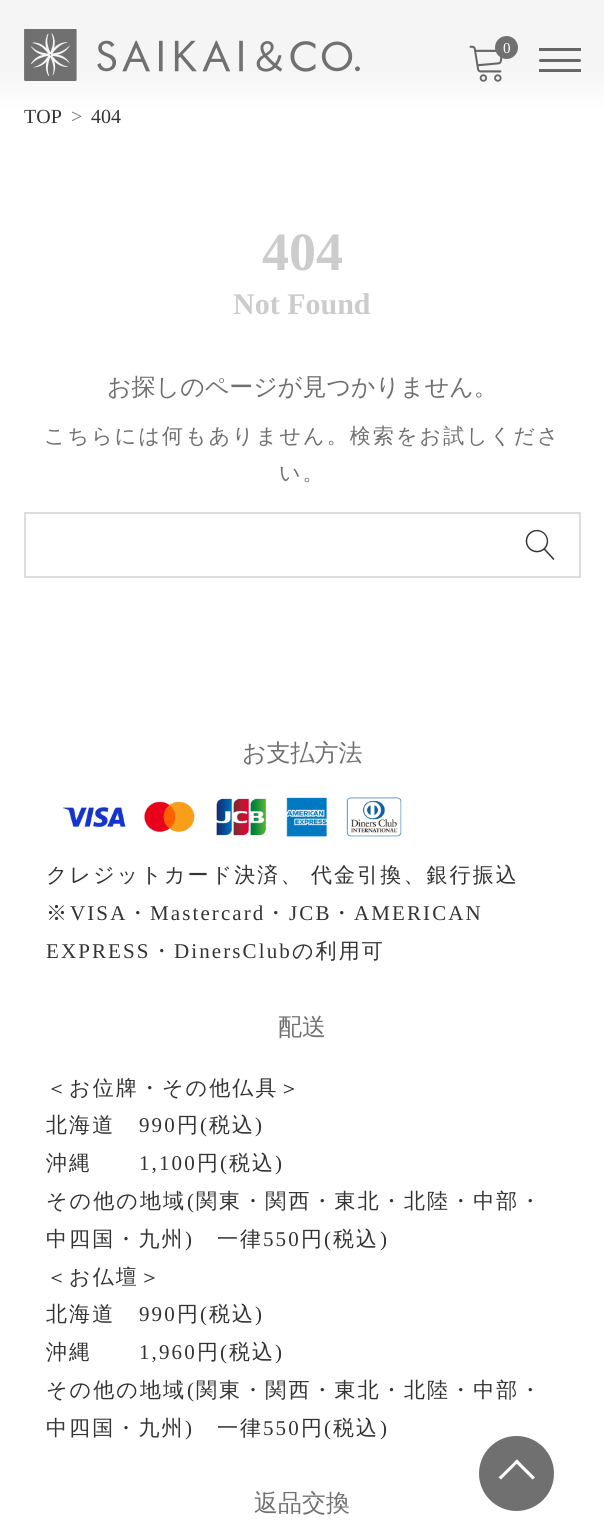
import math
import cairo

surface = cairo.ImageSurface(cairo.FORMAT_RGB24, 604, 1533)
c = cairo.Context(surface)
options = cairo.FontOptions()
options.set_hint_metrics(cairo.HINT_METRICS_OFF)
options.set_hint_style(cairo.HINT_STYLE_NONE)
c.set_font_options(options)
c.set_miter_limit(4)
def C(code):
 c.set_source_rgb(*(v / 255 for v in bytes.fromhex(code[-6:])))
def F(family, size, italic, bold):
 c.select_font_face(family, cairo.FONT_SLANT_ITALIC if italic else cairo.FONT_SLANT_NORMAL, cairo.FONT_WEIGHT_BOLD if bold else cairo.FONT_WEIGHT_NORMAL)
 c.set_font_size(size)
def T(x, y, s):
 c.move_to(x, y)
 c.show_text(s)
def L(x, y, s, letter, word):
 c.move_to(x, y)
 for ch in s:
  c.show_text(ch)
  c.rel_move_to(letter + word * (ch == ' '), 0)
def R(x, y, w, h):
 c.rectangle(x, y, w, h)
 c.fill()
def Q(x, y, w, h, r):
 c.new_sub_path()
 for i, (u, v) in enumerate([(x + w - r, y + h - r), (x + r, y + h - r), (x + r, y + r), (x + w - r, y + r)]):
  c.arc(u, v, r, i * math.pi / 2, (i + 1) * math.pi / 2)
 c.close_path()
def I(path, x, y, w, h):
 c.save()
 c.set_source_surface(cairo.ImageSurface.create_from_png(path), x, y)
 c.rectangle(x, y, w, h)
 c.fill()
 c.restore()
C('ffffff')
c.paint()
F('Liberation Serif',20,0,0)
C('333333')
T(24,123,'TOP')
C('707070')
T(71,123,'>')
C('333333')
T(91,123,'404')
gradient = cairo.LinearGradient(302,114,302,0)
gradient.add_color_stop_rgba(0,0.961,0.961,0.961,0)
gradient.add_color_stop_rgba(.4,0.961,0.961,0.961,1)
c.set_source(gradient)
R(0,0,604,113)
I('1.png',24,29,336,52)
I('2.png',469,45,34,37)
C('707070')
c.arc(506.5,47.5,11.5,0,2 * math.pi)
c.fill()
F('Liberation Serif',15,0,0)
C('ffffff')
T(503,53,'0')
C('666666')
R(539,48,42,3)
Q(539,59,42,3,1.5)
c.fill()
R(539,69,42,3)
F('Liberation Serif',54,0,1)
C('cccccc')
T(262,270,'404')
F('Liberation Serif',30,0,1)
T(233,314,'Not Found')
F('WenQuanYi Zen Hei Medium',24,0,0)
C('707070')
T(107,395,'お探しのページが見つかりません。')
F('WenQuanYi Zen Hei Medium',21,0,0)
L(44,443,'こちらには何もありません。検索をお試しくださ',2.1,0)
L(279,480,'い。',2.1,0)
c.rectangle(25,513,555,64)
C('dddddd')
c.stroke()
I('3.png',525,529,30,31)
F('WenQuanYi Zen Hei Medium',24,0,0)
C('707070')
T(242,761,'お支払方法')
I('4.png',63,797,339,40)
F('WenQuanYi Zen Hei Medium',21,0,0)
C('333333')
L(46,882,'クレジットカード決済、',2.1,0)
L(311,882,'代⾦引換、銀行振込',2.1,0)
L(46,920,'※',2.1,0)
F('Liberation Serif',21,0,0)
L(70,920,'VISA',2.1,0)
F('WenQuanYi Zen Hei Medium',21,0,0)
L(127,920,'・',2.1,0)
F('Liberation Serif',21,0,0)
L(150,920,'Mastercard',2.1,0)
F('WenQuanYi Zen Hei Medium',21,0,0)
L(265,920,'・',2.1,0)
F('Liberation Serif',21,0,0)
L(289,920,'JCB',2.1,0)
F('WenQuanYi Zen Hei Medium',21,0,0)
L(331,920,'・',2.1,0)
F('Liberation Serif',21,0,0)
L(354,920,'AMERICAN',2.1,0)
L(46,958,'EXPRESS',2.1,0)
F('WenQuanYi Zen Hei Medium',21,0,0)
L(151,958,'・',2.1,0)
F('Liberation Serif',21,0,0)
L(174,958,'DinersClub',2.1,0)
F('WenQuanYi Zen Hei Medium',21,0,0)
L(292,958,'の利用可',2.1,0)
F('WenQuanYi Zen Hei Medium',24,0,0)
C('707070')
T(278,1035,'配送')
F('WenQuanYi Zen Hei Medium',21,0,0)
C('333333')
L(46,1095,'＜お位牌・その他仏具＞',2.1,0)
L(46,1132,'北海道',2.1,0)
F('Liberation Serif',21,0,0)
L(139,1132,'990',2.1,0)
F('WenQuanYi Zen Hei Medium',21,0,0)
L(177,1132,'円',2.1,0)
F('Liberation Serif',21,0,0)
L(200,1132,'(',2.1,0)
F('WenQuanYi Zen Hei Medium',21,0,0)
L(209,1132,'税込',2.1,0)
F('Liberation Serif',21,0,0)
L(255,1132,')',2.1,0)
F('WenQuanYi Zen Hei Medium',21,0,0)
L(46,1170,'沖縄',2.1,0)
F('Liberation Serif',21,0,0)
L(139,1170,'1,100',2.1,0)
F('WenQuanYi Zen Hei Medium',21,0,0)
L(197,1170,'円',2.1,0)
F('Liberation Serif',21,0,0)
L(220,1170,'(',2.1,0)
F('WenQuanYi Zen Hei Medium',21,0,0)
L(229,1170,'税込',2.1,0)
F('Liberation Serif',21,0,0)
L(275,1170,')',2.1,0)
F('WenQuanYi Zen Hei Medium',21,0,0)
L(46,1208,'その他の地域',2.1,0)
F('Liberation Serif',21,0,0)
L(187,1208,'(',2.1,0)
F('WenQuanYi Zen Hei Medium',21,0,0)
L(196,1208,'関東・関西・東北・北陸・中部・',2.1,0)
L(46,1246,'中四国・九州',2.1,0)
F('Liberation Serif',21,0,0)
L(185,1246,')',2.1,0)
F('WenQuanYi Zen Hei Medium',21,0,0)
L(217,1246,'一律',2.1,0)
F('Liberation Serif',21,0,0)
L(263,1246,'550',2.1,0)
F('WenQuanYi Zen Hei Medium',21,0,0)
L(301,1246,'円',2.1,0)
F('Liberation Serif',21,0,0)
L(324,1246,'(',2.1,0)
F('WenQuanYi Zen Hei Medium',21,0,0)
L(333,1246,'税込',2.1,0)
F('Liberation Serif',21,0,0)
L(380,1246,')',2.1,0)
F('WenQuanYi Zen Hei Medium',21,0,0)
L(46,1284,'＜お仏壇＞',2.1,0)
L(46,1321,'北海道',2.1,0)
F('Liberation Serif',21,0,0)
L(139,1321,'990',2.1,0)
F('WenQuanYi Zen Hei Medium',21,0,0)
L(177,1321,'円',2.1,0)
F('Liberation Serif',21,0,0)
L(200,1321,'(',2.1,0)
F('WenQuanYi Zen Hei Medium',21,0,0)
L(209,1321,'税込',2.1,0)
F('Liberation Serif',21,0,0)
L(255,1321,')',2.1,0)
F('WenQuanYi Zen Hei Medium',21,0,0)
L(46,1359,'沖縄',2.1,0)
F('Liberation Serif',21,0,0)
L(139,1359,'1,960',2.1,0)
F('WenQuanYi Zen Hei Medium',21,0,0)
L(197,1359,'円',2.1,0)
F('Liberation Serif',21,0,0)
L(220,1359,'(',2.1,0)
F('WenQuanYi Zen Hei Medium',21,0,0)
L(229,1359,'税込',2.1,0)
F('Liberation Serif',21,0,0)
L(275,1359,')',2.1,0)
F('WenQuanYi Zen Hei Medium',21,0,0)
L(46,1397,'その他の地域',2.1,0)
F('Liberation Serif',21,0,0)
L(187,1397,'(',2.1,0)
F('WenQuanYi Zen Hei Medium',21,0,0)
L(196,1397,'関東・関西・東北・北陸・中部・',2.1,0)
L(46,1435,'中四国・九州',2.1,0)
F('Liberation Serif',21,0,0)
L(185,1435,')',2.1,0)
F('WenQuanYi Zen Hei Medium',21,0,0)
L(217,1435,'一律',2.1,0)
F('Liberation Serif',21,0,0)
L(263,1435,'550',2.1,0)
F('WenQuanYi Zen Hei Medium',21,0,0)
L(301,1435,'円',2.1,0)
F('Liberation Serif',21,0,0)
L(324,1435,'(',2.1,0)
F('WenQuanYi Zen Hei Medium',21,0,0)
L(333,1435,'税込',2.1,0)
F('Liberation Serif',21,0,0)
L(380,1435,')',2.1,0)
F('WenQuanYi Zen Hei Medium',24,0,0)
C('707070')
T(254,1511,'返品交換')
c.new_path()
c.arc(516.5,1473.5,37.5,0,2 * math.pi)
c.fill()
C('ffffff')
c.new_path()
c.move_to(498.5,1477.5)
c.line_to(517,1459.5)
c.line_to(519,1461.5)
c.line_to(501,1479.5)
c.close_path()
c.fill()
c.new_path()
c.move_to(514.5,1461.5)
c.line_to(517,1459.5)
c.line_to(535,1477.5)
c.line_to(532.5,1479.5)
c.close_path()
c.fill()
surface.write_to_png('o.png')
